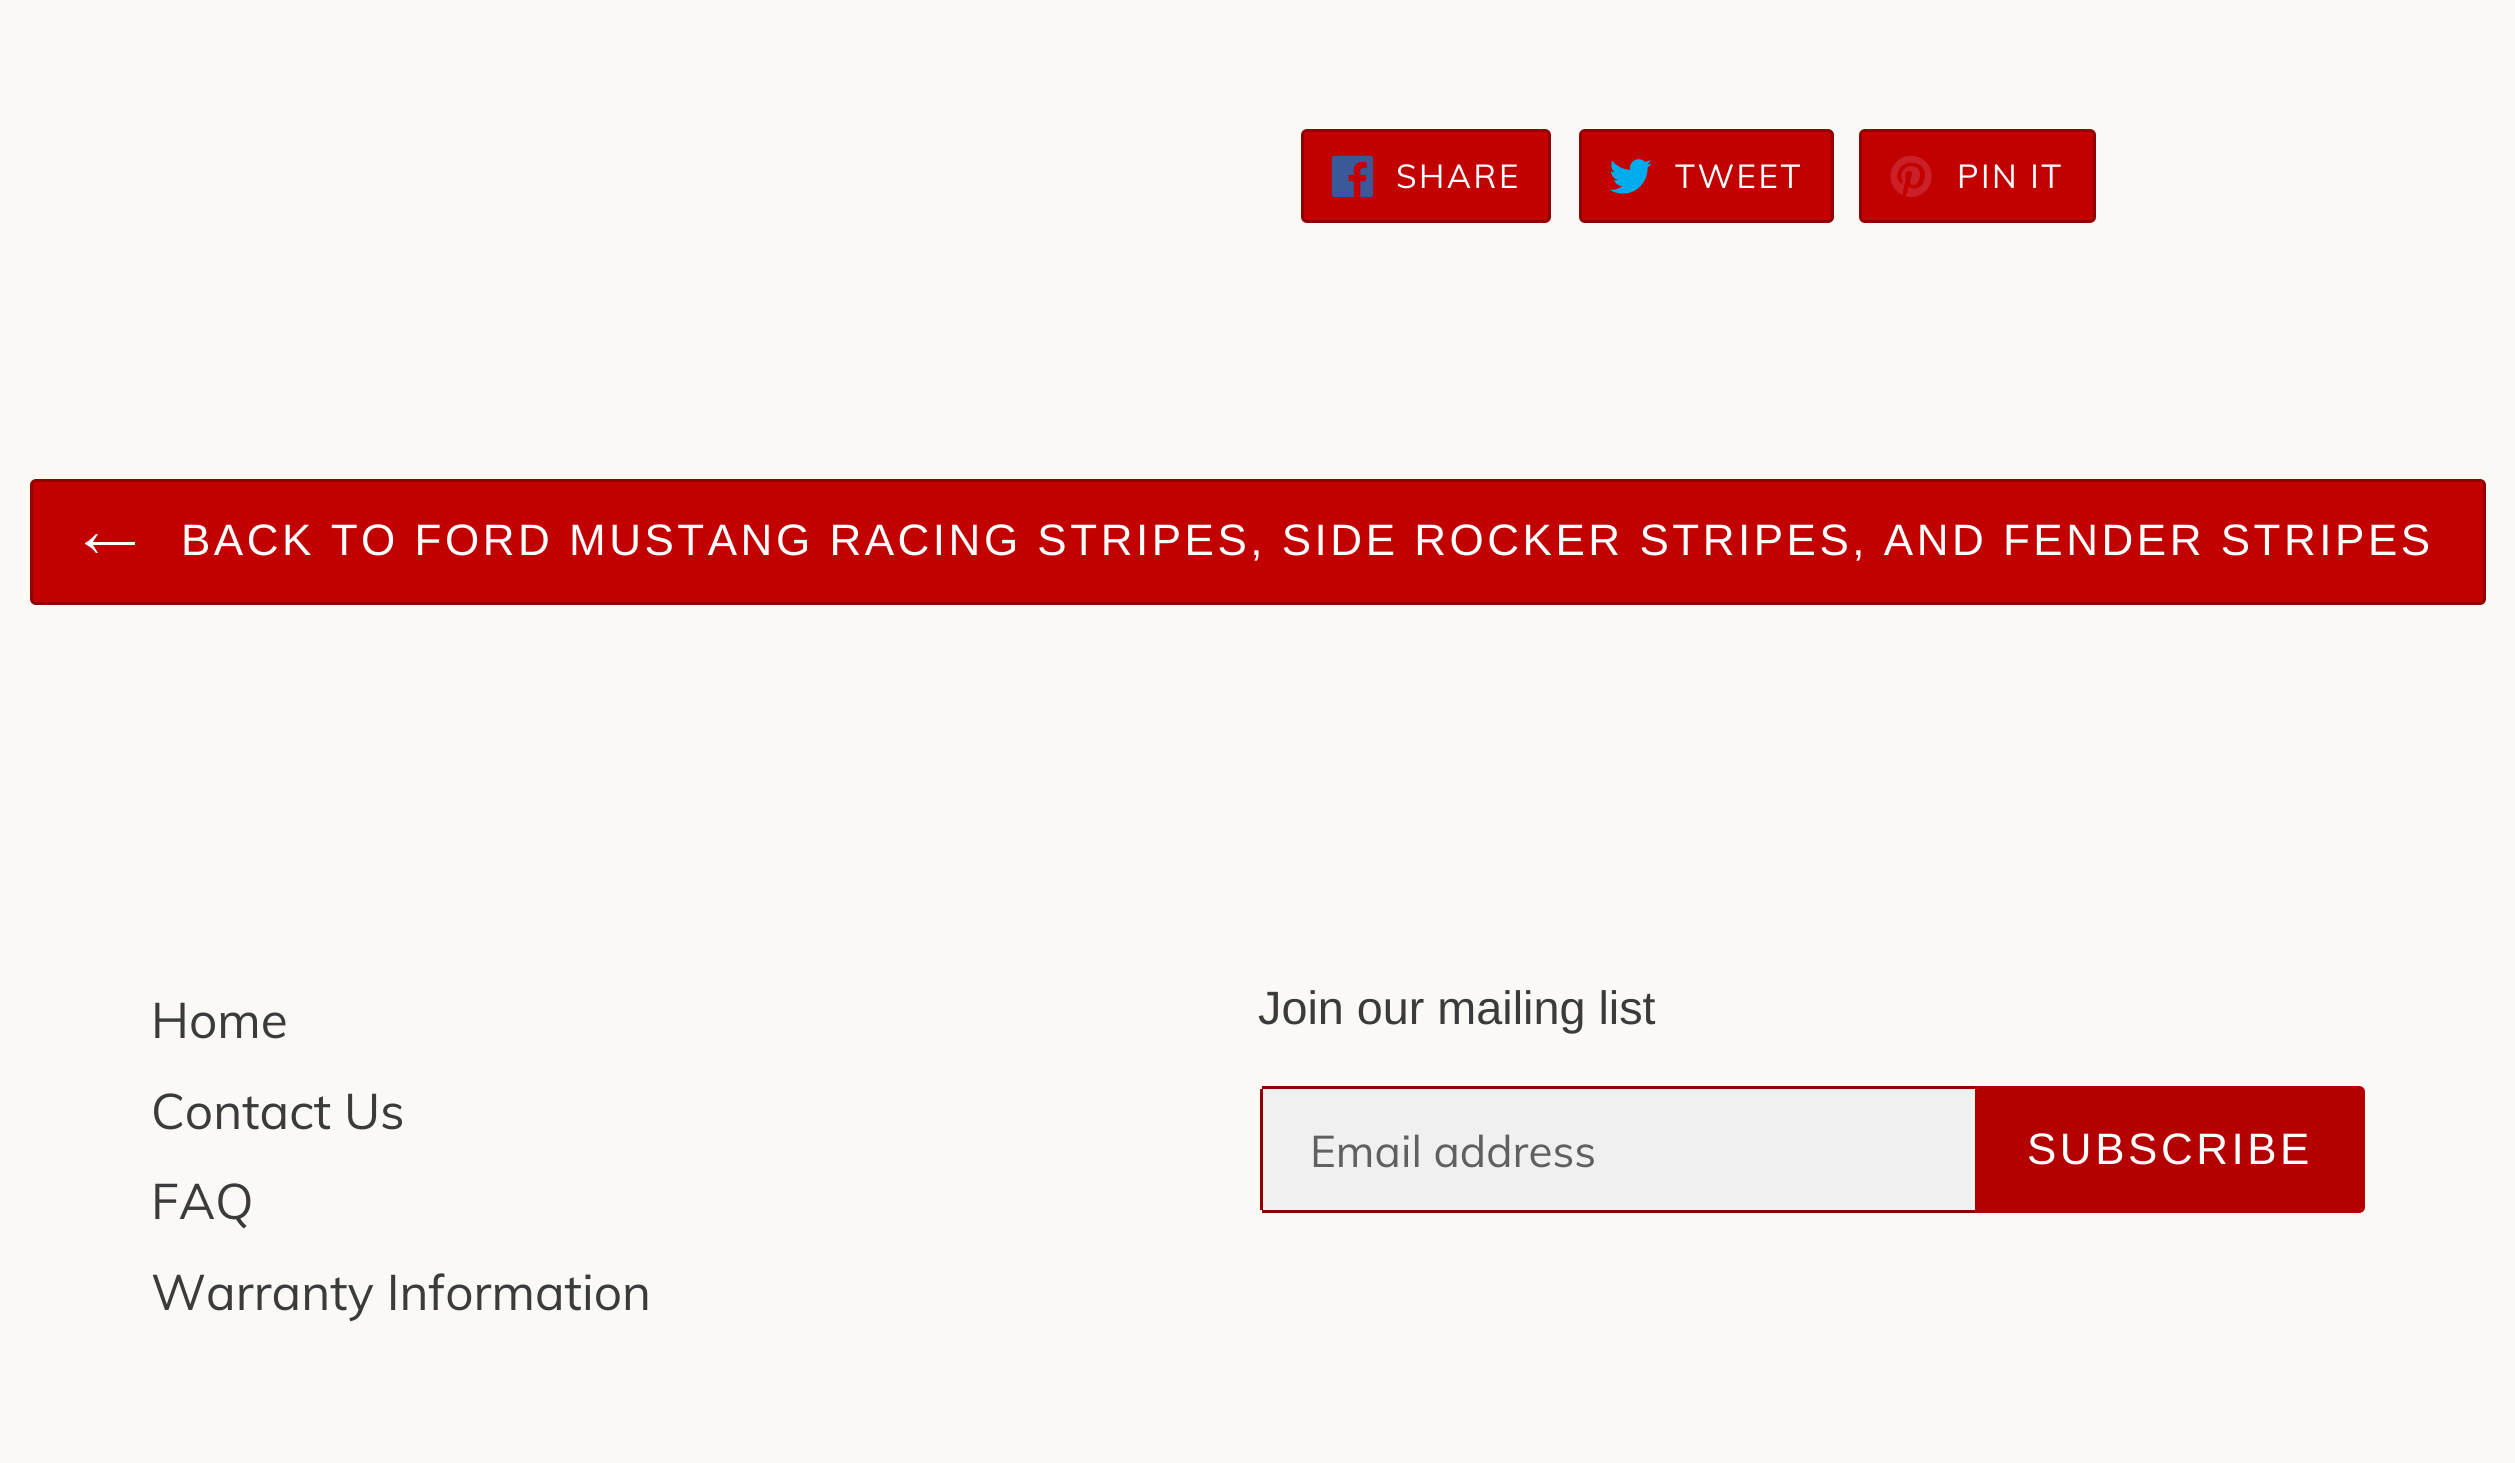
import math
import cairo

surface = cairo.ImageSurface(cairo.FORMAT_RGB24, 2515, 1463)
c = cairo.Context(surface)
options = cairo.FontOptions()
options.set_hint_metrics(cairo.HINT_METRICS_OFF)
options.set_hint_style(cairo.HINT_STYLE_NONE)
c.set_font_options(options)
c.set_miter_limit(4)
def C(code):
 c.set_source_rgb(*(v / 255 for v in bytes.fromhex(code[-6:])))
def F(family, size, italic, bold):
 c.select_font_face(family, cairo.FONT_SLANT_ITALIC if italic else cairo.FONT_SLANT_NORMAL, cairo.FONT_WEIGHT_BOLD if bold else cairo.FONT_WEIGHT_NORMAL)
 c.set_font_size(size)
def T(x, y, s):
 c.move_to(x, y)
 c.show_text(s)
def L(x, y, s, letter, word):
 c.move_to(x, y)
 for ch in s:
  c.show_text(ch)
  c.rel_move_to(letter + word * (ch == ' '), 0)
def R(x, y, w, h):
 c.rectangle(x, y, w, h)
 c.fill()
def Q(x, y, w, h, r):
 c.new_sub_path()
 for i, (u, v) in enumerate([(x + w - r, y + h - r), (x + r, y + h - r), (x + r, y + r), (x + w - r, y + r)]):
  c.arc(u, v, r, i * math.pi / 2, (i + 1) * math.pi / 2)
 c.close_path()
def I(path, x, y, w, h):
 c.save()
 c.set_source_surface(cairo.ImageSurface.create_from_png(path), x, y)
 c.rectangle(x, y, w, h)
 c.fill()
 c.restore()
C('fbf9f6')
c.paint()
C('c20000')
Q(1302.5,130.5,247,91,4.5)
c.fill_preserve()
C('920000')
c.set_line_width(3)
c.stroke()
I('1.png',1331,155,42,42)
F('Muli',33,0,0)
C('ffffff')
L(1396,188,'SHARE',2.5,0)
C('c20000')
Q(1580.5,130.5,252,91,4.5)
c.fill_preserve()
C('920000')
c.stroke()
I('2.png',1609,159,43,35)
C('ffffff')
L(1675,188,'TWEET',2.5,0)
C('c20000')
Q(1860.5,130.5,234,91,4.5)
c.fill_preserve()
C('920000')
c.stroke()
I('3.png',1890,155,42,42)
C('ffffff')
L(1957,188,'PIN IT',2.5,0)
C('c20000')
Q(31.5,480.5,2453,123,4.5)
c.fill_preserve()
C('920000')
c.stroke()
C('ffffff')
c.set_fill_rule(cairo.FILL_RULE_EVEN_ODD)
c.new_path()
c.move_to(96,553)
c.curve_to(93,549,89,546,85,544)
c.line_to(85,543)
c.curve_to(89,541,93,537,96,534)
c.line_to(98,534)
c.curve_to(96,537,94,540,93,542)
c.line_to(135,542)
c.line_to(135,545)
c.line_to(93,545)
c.line_to(98,553)
c.close_path()
c.fill()
F('Liberation Sans',44,0,0)
L(181,555,'BACK TO FORD MUSTANG RACING STRIPES, SIDE ROCKER STRIPES, AND FENDER STRIPES',3.52,0)
F('Muli',49.5,0,0)
C('3b3b3b')
T(151,1038,'Home')
T(151,1129,'Contact Us')
T(151,1219,'FAQ')
T(151,1310,'Warranty Information')
F('Liberation Sans',46.75,0,0)
T(1258,1024,'Join our mailing list')
C('f0f0f0')
c.new_path()
c.move_to(1266,1086)
c.line_to(1975,1086)
c.line_to(1975,1213)
c.line_to(1266,1213)
c.curve_to(1262.5,1213,1260,1210.5,1260,1207)
c.line_to(1260,1092)
c.curve_to(1260,1088.5,1262.5,1086,1266,1086)
c.close_path()
c.fill()
C('920000')
R(1262,1086,713,3)
R(1262,1210,713,3)
R(1260,1089,3,121)
F('Muli',44,0,0)
C('606060')
T(1310,1167,'Email address')
C('b50000')
c.new_path()
c.move_to(1975,1086)
c.line_to(2359,1086)
c.curve_to(2362.5,1086,2365,1088.5,2365,1092)
c.line_to(2365,1207)
c.curve_to(2365,1210.5,2362.5,1213,2359,1213)
c.line_to(1975,1213)
c.close_path()
c.fill()
F('Liberation Sans',44,0,0)
C('ffffff')
L(2027,1164,'SUBSCRIBE',3.52,0)
surface.write_to_png('o.png')
